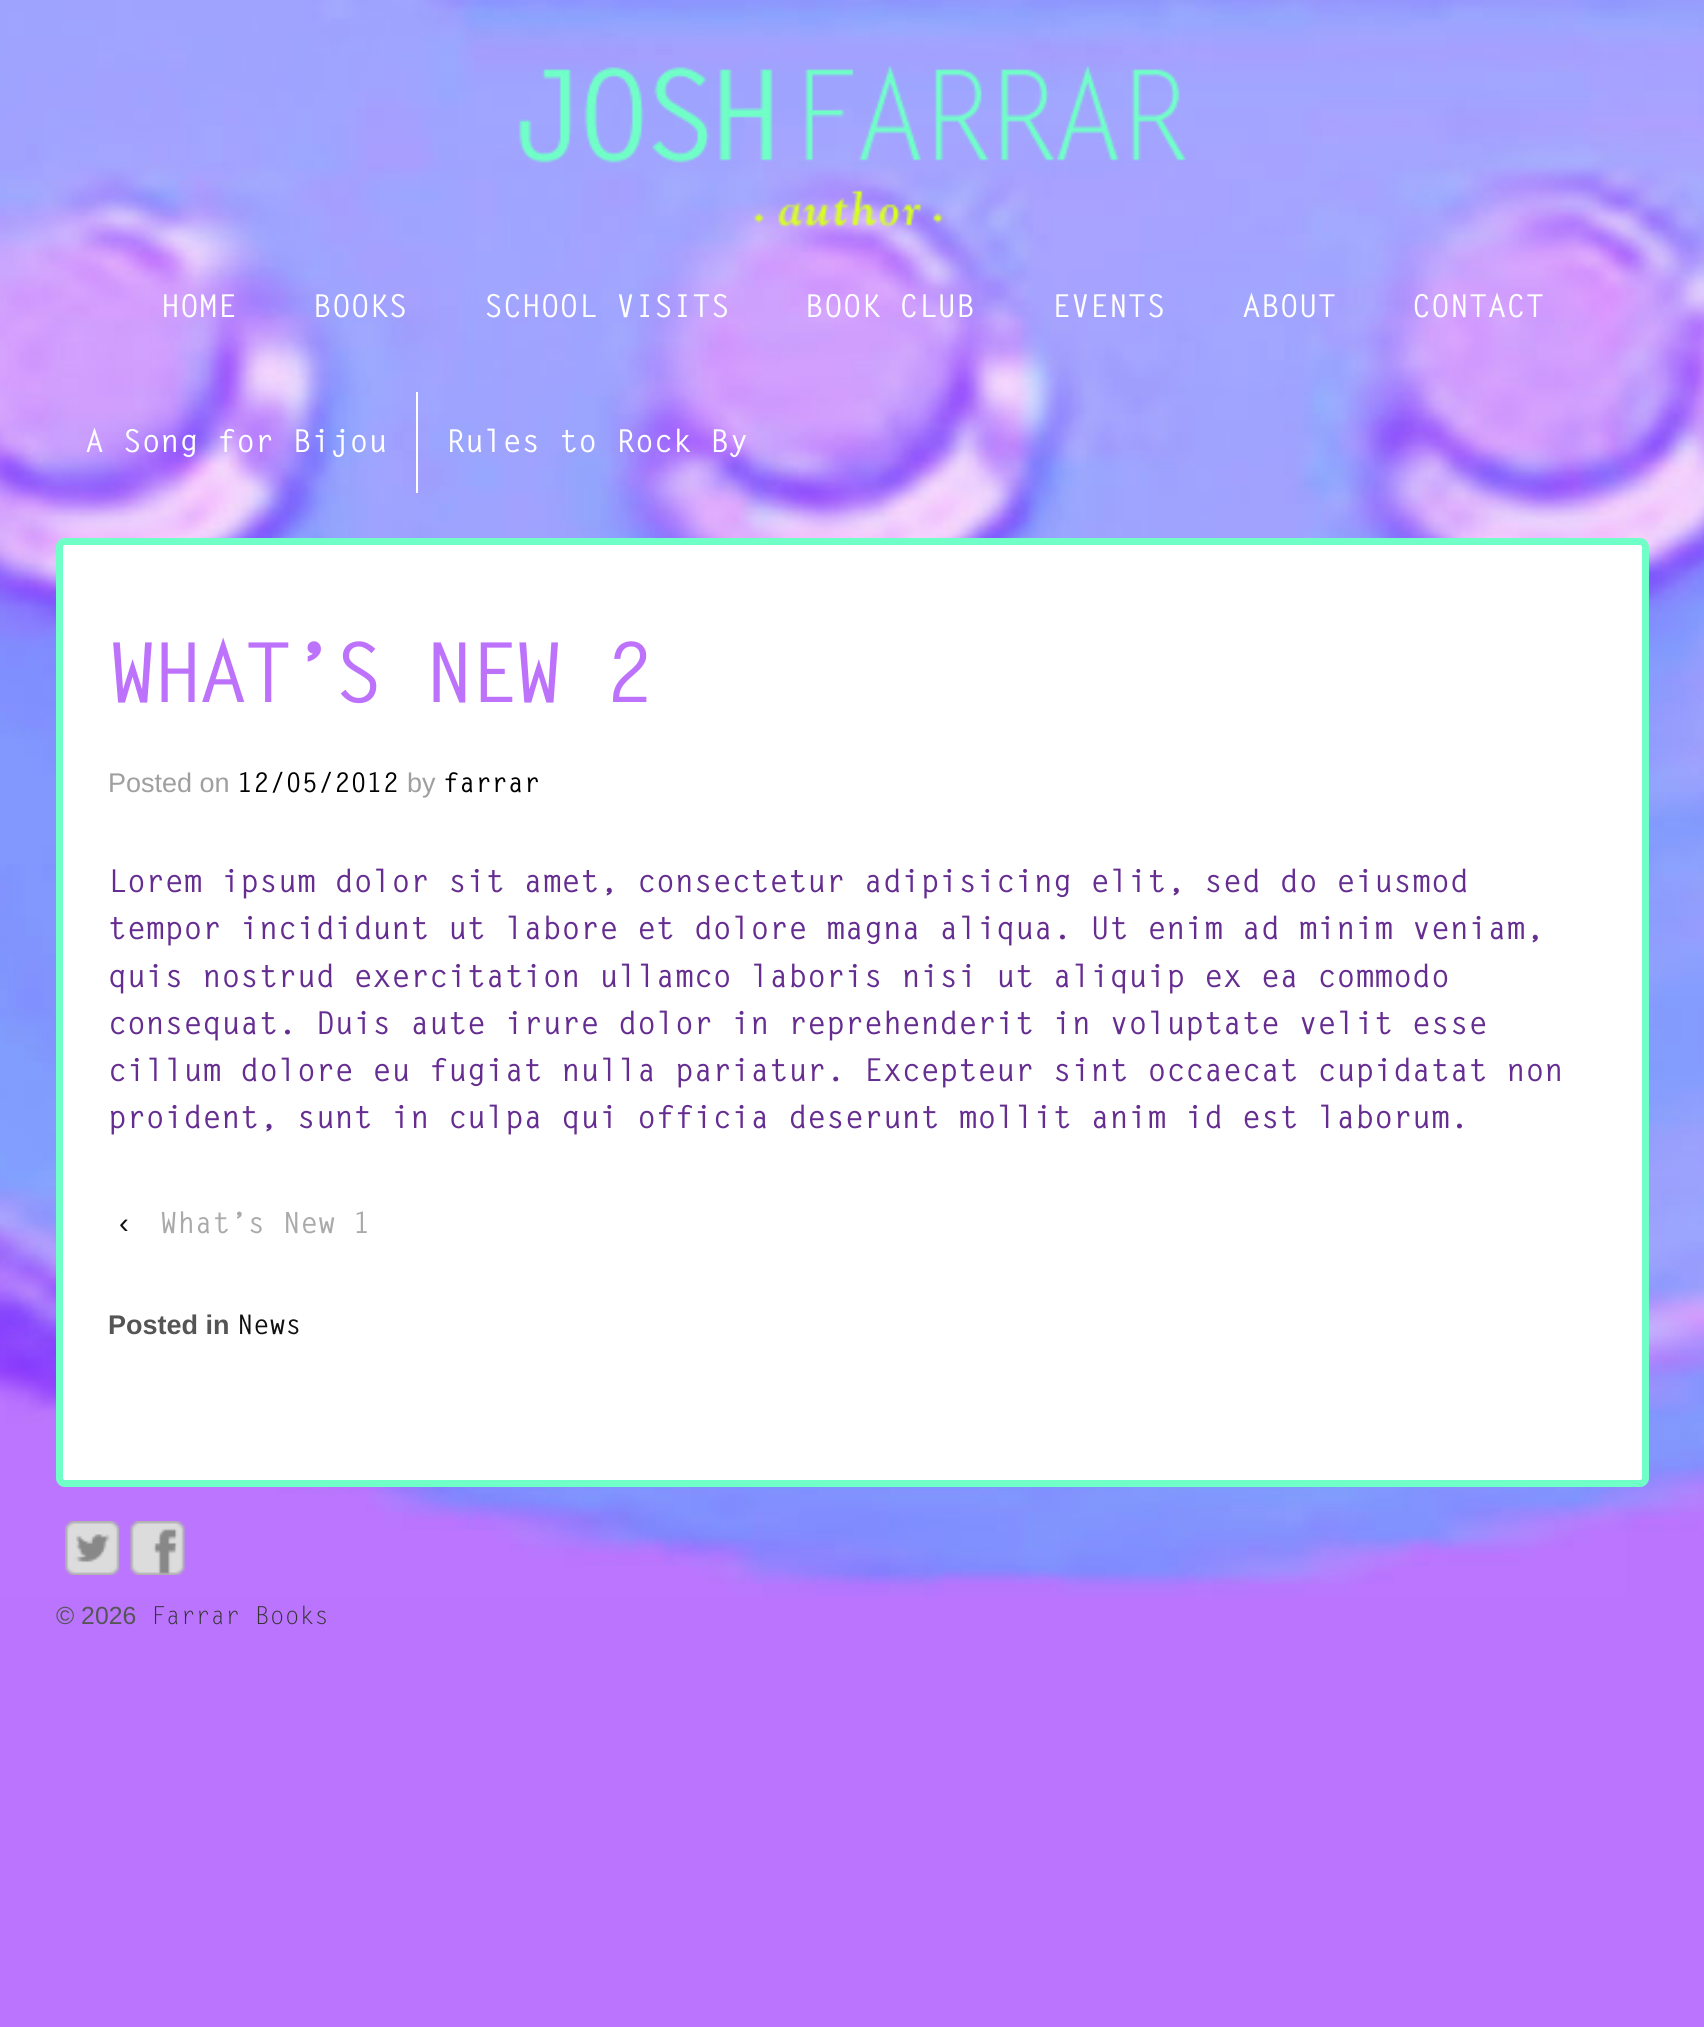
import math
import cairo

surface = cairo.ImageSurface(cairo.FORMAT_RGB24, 1704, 2027)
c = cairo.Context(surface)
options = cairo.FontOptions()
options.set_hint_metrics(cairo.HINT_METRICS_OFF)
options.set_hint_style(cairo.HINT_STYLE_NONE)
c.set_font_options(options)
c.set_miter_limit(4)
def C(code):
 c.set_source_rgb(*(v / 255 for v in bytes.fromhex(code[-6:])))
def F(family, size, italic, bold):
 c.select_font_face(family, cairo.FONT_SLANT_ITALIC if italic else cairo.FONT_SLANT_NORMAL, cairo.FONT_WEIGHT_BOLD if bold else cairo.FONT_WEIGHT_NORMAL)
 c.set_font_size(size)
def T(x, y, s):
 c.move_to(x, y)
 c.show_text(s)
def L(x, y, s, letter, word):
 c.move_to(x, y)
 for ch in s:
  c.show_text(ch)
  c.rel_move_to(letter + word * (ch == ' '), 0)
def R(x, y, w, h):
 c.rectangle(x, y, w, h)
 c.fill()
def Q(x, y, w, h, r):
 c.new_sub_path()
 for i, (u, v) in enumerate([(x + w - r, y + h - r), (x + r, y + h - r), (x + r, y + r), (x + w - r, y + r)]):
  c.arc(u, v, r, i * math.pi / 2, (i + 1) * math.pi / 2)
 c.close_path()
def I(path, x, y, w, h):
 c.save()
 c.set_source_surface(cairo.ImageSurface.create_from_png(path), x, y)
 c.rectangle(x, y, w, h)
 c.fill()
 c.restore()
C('bb74fe')
c.paint()
I('1.png',0,0,1704,1598)
I('2.png',519,65,668,163)
F('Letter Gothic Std',31.5,0,1)
C('ffffff')
T(161,317,'HOME')
T(313,317,'BOOKS')
T(484,317,'SCHOOL VISITS')
T(805,317,'BOOK CLUB')
T(1052,317,'EVENTS')
T(1242,317,'ABOUT')
T(1412,317,'CONTACT')
T(85,452,'A Song for Bijou')
R(416,392,2,101)
T(446,452,'Rules to Rock By')
Q(59.5,541.5,1586,942,5.5)
c.fill_preserve()
C('71ffc8')
c.set_line_width(7)
c.stroke()
F('Letter Gothic Std',82.75,0,1)
C('bd72fb')
L(108,702,'WHAT’S NEW 2',-4.5,0)
F('Liberation Sans',27,0,0)
C('9f9f9f')
T(108,792,'Posted on')
F('Letter Gothic Std',27,0,1)
C('000000')
T(237,792,'12/05/2012')
F('Liberation Sans',27,0,0)
C('9f9f9f')
T(407,792,'by')
F('Letter Gothic Std',27,0,1)
C('000000')
T(443,792,'farrar')
F('Letter Gothic Std',31.5,0,1)
C('662d91')
T(108,892,'Lorem ipsum dolor sit amet, consectetur adipisicing elit, sed do eiusmod')
T(108,939,'tempor incididunt ut labore et dolore magna aliqua. Ut enim ad minim veniam,')
T(108,987,'quis nostrud exercitation ullamco laboris nisi ut aliquip ex ea commodo')
T(108,1034,'consequat. Duis aute irure dolor in reprehenderit in voluptate velit esse')
T(108,1081,'cillum dolore eu fugiat nulla pariatur. Excepteur sint occaecat cupidatat non')
T(108,1128,'proident, sunt in culpa qui officia deserunt mollit anim id est laborum.')
F('Liberation Sans',29.25,0,0)
C('111111')
T(119,1233,'‹')
F('Letter Gothic Std',29.25,0,1)
C('aaaaaa')
T(160,1233,'What’s New 1')
F('Liberation Sans',27,0,1)
C('555555')
T(108,1334,'Posted in')
F('Letter Gothic Std',27,0,1)
C('111111')
T(237,1334,'News')
I('3.png',65,1521,55,54)
I('4.png',130,1521,55,54)
F('Liberation Sans',24.75,0,0)
C('555555')
T(56,1624,'© 2026')
F('Letter Gothic Std',24.75,0,0)
C('333333')
T(151,1624,'Farrar Books')
surface.write_to_png('o.png')
